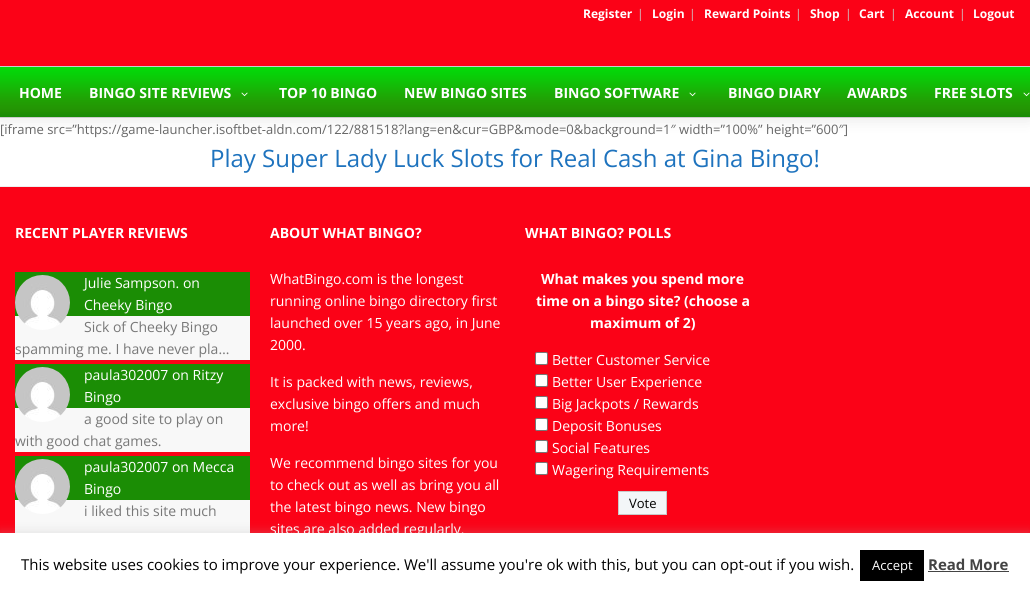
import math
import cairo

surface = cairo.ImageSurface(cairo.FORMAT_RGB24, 1030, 593)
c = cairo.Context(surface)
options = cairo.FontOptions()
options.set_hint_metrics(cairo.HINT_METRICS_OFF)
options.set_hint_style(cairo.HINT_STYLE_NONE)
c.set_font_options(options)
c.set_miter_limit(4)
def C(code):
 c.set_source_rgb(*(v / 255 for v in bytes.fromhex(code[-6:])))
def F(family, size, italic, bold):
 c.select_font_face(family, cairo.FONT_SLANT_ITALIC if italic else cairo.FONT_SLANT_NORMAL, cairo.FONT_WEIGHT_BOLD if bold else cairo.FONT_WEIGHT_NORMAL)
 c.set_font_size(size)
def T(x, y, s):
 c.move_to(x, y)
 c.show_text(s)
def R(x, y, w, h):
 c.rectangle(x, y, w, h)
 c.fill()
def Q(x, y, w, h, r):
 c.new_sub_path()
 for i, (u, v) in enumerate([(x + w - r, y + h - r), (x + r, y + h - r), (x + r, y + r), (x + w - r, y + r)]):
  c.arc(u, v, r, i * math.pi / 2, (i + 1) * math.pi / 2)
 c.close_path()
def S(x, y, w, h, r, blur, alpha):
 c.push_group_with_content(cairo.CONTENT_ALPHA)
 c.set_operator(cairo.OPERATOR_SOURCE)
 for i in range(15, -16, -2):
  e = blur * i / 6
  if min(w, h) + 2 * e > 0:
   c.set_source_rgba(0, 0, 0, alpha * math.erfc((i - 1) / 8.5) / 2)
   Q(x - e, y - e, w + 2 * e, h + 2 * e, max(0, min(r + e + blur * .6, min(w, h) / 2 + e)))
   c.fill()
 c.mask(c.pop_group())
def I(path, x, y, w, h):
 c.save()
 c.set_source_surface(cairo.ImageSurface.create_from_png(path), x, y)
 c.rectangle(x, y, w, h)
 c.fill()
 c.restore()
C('ffffff')
c.paint()
C('000000')
S(0,-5,1030,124,0,7.5,.1)
C('fb0217')
R(0,0,1030,66)
F('Open Sans',12,0,1)
C('ffffff')
T(583,18,'Register')
F('Open Sans',12,0,0)
C('cccccc')
T(637,18,'|')
F('Open Sans',12,0,1)
C('ffffff')
T(652,18,'Login')
F('Open Sans',12,0,0)
C('cccccc')
T(689,18,'|')
F('Open Sans',12,0,1)
C('ffffff')
T(704,18,'Reward Points')
F('Open Sans',12,0,0)
C('cccccc')
T(795,18,'|')
F('Open Sans',12,0,1)
C('ffffff')
T(810,18,'Shop')
F('Open Sans',12,0,0)
C('cccccc')
T(845,18,'|')
F('Open Sans',12,0,1)
C('ffffff')
T(859,18,'Cart')
F('Open Sans',12,0,0)
C('cccccc')
T(890,18,'|')
F('Open Sans',12,0,1)
C('ffffff')
T(905,18,'Account')
F('Open Sans',12,0,0)
C('cccccc')
T(959,18,'|')
F('Open Sans',12,0,1)
C('ffffff')
T(973,18,'Logout')
I('1.png',0,67,1030,50)
C('cccccc')
R(0,66,1030,1)
R(0,117,1030,1)
F('Open Sans',14,0,1)
C('ffffff')
T(19,98,'HOME')
T(89,98,'BINGO SITE REVIEWS')
I('2.png',241,92,7,5)
T(279,98,'TOP 10 BINGO')
T(404,98,'NEW BINGO SITES')
T(554,98,'BINGO SOFTWARE')
I('2.png',689,92,7,5)
T(728,98,'BINGO DIARY')
T(847,98,'AWARDS')
T(934,98,'FREE SLOTS')
I('2.png',1023,92,7,5)
F('Open Sans',13,0,0)
C('666666')
T(0,134,'[iframe src=”https://game-launcher.isoftbet-aldn.com/122/881518?lang=en&cur=GBP&mode=0&background=1″ width=”100%” height=”600″]')
F('Open Sans',24,0,0)
C('1e73be')
T(210,167,'Play Super Lady Luck Slots for Real Cash at Gina Bingo!')
C('fb0217')
R(0,187,1030,346)
C('eeeeee')
R(0,186,1030,1)
F('Open Sans',14,0,1)
C('ffffff')
T(15,238,'RECENT PLAYER REVIEWS')
C('f8f8f8')
R(15,316,235,44)
C('1b8d05')
R(15,272,235,44)
I('3.png',15,275,55,55)
F('Open Sans',14,0,0)
C('ffffff')
T(84,288,'Julie Sampson. on')
T(84,310,'Cheeky Bingo')
C('787878')
T(84,332,'Sick of Cheeky Bingo')
T(15,354,'spamming me. I have never pla…')
C('f8f8f8')
R(15,408,235,44)
C('1b8d05')
R(15,364,235,44)
I('3.png',15,367,55,55)
C('ffffff')
T(84,380,'paula302007 on Ritzy')
T(84,402,'Bingo')
C('787878')
T(84,424,'a good site to play on')
T(15,446,'with good chat games.')
C('f8f8f8')
R(15,500,235,33)
C('1b8d05')
R(15,456,235,44)
I('4.png',15,459,55,55)
C('ffffff')
T(84,472,'paula302007 on Mecca')
T(84,494,'Bingo')
C('787878')
T(84,516,'i liked this site much')
F('Open Sans',14,0,1)
C('ffffff')
T(270,238,'ABOUT WHAT BINGO?')
F('Open Sans',14,0,0)
T(270,284,'WhatBingo.com is the longest')
T(270,306,'running online bingo directory first')
T(270,328,'launched over 15 years ago, in June')
T(270,350,'2000.')
T(270,387,'It is packed with news, reviews,')
T(270,409,'exclusive bingo offers and much')
T(270,431,'more!')
T(270,468,'We recommend bingo sites for you')
T(270,490,'to check out as well as bring you all')
T(270,512,'the latest bingo news. New bingo')
T(270,534,'sites are also added regularly.')
F('Open Sans',14,0,1)
T(525,238,'WHAT BINGO? POLLS')
T(541,284,'What makes you spend more')
T(536,306,'time on a bingo site? (choose a')
T(590,328,'maximum of 2)')
Q(535.5,352.5,12,12,1.5)
c.fill_preserve()
C('767676')
c.set_line_width(1)
c.stroke()
F('Open Sans',14,0,0)
C('ffffff')
T(552,365,'Better Customer Service')
Q(535.5,374.5,12,12,1.5)
c.fill_preserve()
C('767676')
c.stroke()
C('ffffff')
T(552,387,'Better User Experience')
Q(535.5,396.5,12,12,1.5)
c.fill_preserve()
C('767676')
c.stroke()
C('ffffff')
T(552,409,'Big Jackpots / Rewards')
Q(535.5,418.5,12,12,1.5)
c.fill_preserve()
C('767676')
c.stroke()
C('ffffff')
T(552,431,'Deposit Bonuses')
Q(535.5,440.5,12,12,1.5)
c.fill_preserve()
C('767676')
c.stroke()
C('ffffff')
T(552,453,'Social Features')
Q(535.5,462.5,12,12,1.5)
c.fill_preserve()
C('767676')
c.stroke()
C('ffffff')
T(552,475,'Wagering Requirements')
C('f3f6f8')
c.rectangle(618.5,491.5,48,23)
c.fill_preserve()
C('c8c8c8')
c.stroke()
F('Open Sans',13,0,0)
C('000000')
T(629,508,'Vote')
C('acabab')
S(0,532,1030,60,0,5,.3)
C('ffffff')
R(0,533,1030,60)
F('Open Sans',15,0,0)
C('000000')
T(21,570,'This website uses cookies to improve your experience. We\'ll assume you\'re ok with this, but you can opt-out if you wish.')
R(860,550,64,31)
F('Open Sans',13,0,0)
C('ffffff')
T(872,570,'Accept')
F('Open Sans',15,0,1)
C('444444')
T(928,570,'Read More')
R(928,571,81,1)
surface.write_to_png('o.png')
